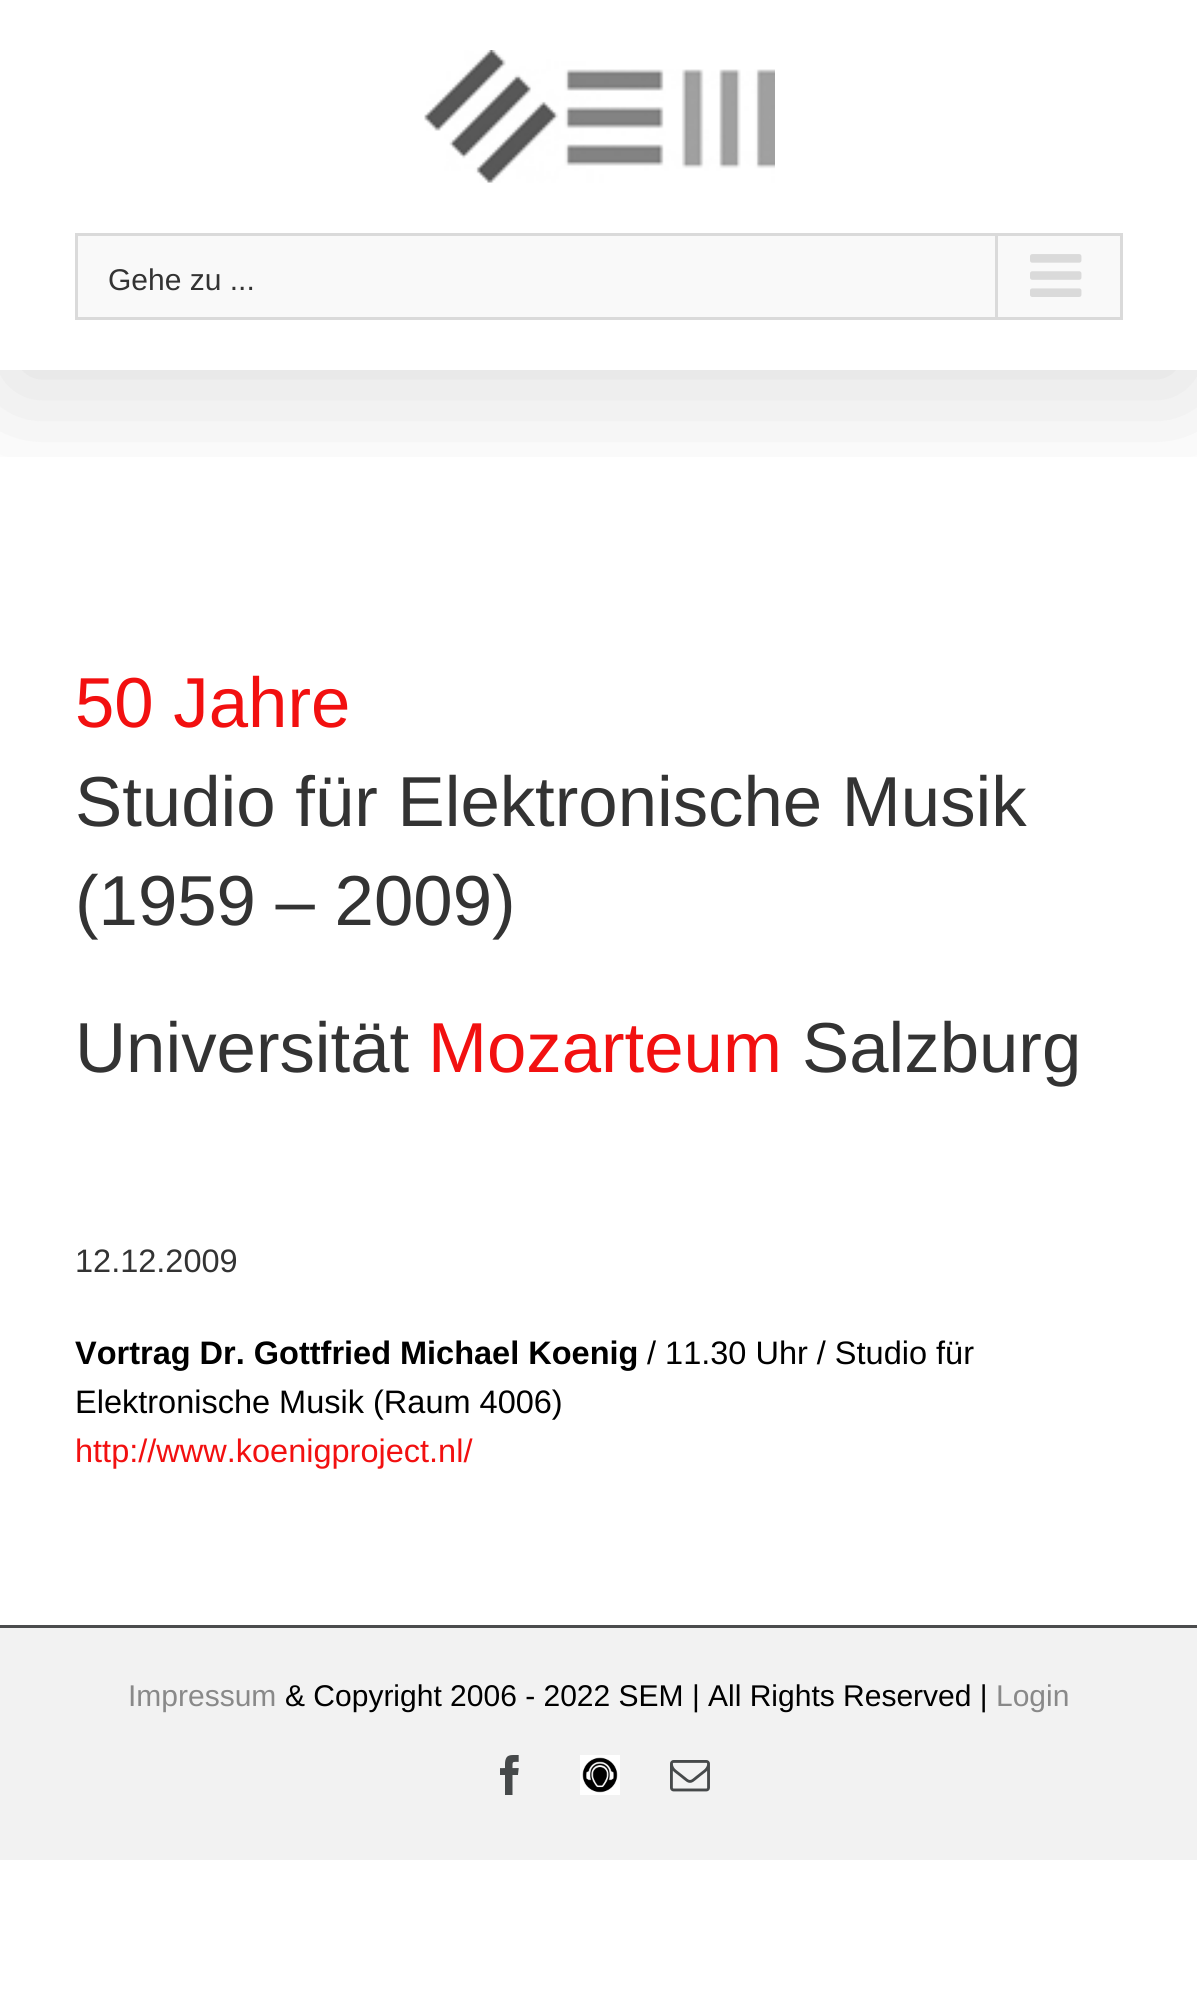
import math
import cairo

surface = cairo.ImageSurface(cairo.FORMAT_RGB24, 1197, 2016)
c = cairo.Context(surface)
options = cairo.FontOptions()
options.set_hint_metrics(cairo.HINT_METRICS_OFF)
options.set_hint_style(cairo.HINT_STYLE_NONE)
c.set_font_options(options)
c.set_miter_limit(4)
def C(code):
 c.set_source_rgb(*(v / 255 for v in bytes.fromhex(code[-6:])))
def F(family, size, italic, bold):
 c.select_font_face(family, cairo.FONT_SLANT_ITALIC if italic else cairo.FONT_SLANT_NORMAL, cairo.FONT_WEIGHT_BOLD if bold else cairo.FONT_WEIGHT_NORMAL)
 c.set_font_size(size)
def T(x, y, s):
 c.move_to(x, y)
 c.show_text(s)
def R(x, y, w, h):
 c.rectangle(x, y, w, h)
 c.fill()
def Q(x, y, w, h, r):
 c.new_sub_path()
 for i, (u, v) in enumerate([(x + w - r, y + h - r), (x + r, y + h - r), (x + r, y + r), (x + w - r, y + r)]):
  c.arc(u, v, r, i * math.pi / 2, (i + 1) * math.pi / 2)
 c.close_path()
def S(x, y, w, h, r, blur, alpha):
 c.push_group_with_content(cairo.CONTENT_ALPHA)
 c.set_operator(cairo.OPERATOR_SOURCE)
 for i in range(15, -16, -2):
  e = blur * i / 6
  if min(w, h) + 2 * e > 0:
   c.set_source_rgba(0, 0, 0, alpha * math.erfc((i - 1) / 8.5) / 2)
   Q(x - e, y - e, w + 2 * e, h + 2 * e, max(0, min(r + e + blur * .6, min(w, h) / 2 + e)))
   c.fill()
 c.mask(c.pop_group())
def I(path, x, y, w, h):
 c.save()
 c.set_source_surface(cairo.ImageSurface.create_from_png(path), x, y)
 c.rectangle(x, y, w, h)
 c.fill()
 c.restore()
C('ffffff')
c.paint()
c.save()
c.rectangle(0,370,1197,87)
c.clip()
C('000000')
S(5,30,1188,360,0,62.5,.14)
c.restore()
I('1.png',424,50,351,133)
C('f9f9f9')
c.rectangle(76.5,234.5,1045,84)
c.fill_preserve()
C('dadada')
c.set_line_width(3)
c.stroke()
F('Liberation Sans',30,0,0)
C('333333')
T(108,290,'Gehe zu ...')
C('dadada')
R(995,235,3,83)
I('2.png',1030,254,52,43)
F('Liberation Sans',70.75,0,0)
C('f21010')
T(75,727,'50 Jahre')
C('333333')
T(75,826,'Studio für Elektronische Musik')
T(75,925,'(1959 – 2009)')
T(75,1072,'Universität')
C('f21010')
T(428,1072,'Mozarteum')
C('333333')
T(802,1072,'Salzburg')
F('Liberation Sans',32.5,0,0)
T(75,1272,'12.12.2009')
F('Liberation Sans',32.5,0,1)
C('000000')
T(75,1364,'Vortrag Dr. Gottfried Michael Koenig')
F('Liberation Sans',32.5,0,0)
T(647,1364,'/ 11.30 Uhr / Studio für')
T(75,1413,'Elektronische Musik (Raum 4006)')
C('f21010')
T(75,1462,'http://www.koenigproject.nl/')
C('f2f2f2')
R(0,1628,1197,232)
C('4b4c4d')
R(0,1625,1197,3)
F('Liberation Sans',30,0,0)
C('898989')
T(128,1706,'Impressum')
C('000000')
T(285,1706,'& Copyright 2006 - 2022 SEM | All Rights Reserved |')
C('898989')
T(996,1706,'Login')
I('3.png',500,1755,19,40)
I('4.png',580,1755,40,40)
I('5.png',670,1760,40,32)
surface.write_to_png('o.png')
